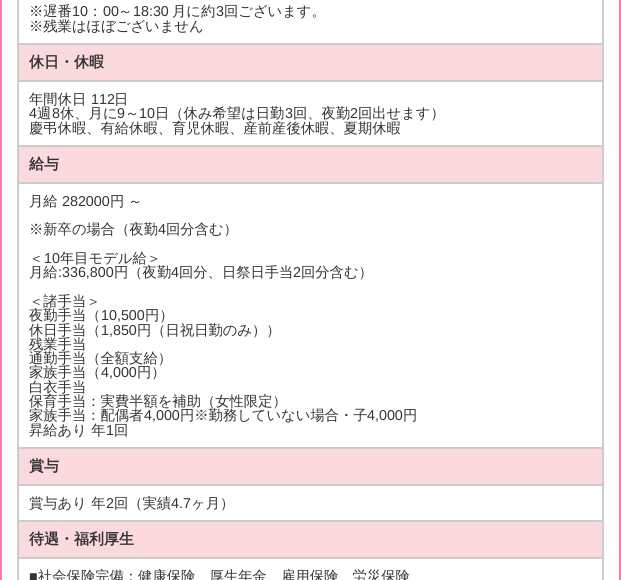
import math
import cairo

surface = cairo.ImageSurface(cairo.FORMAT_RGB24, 621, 580)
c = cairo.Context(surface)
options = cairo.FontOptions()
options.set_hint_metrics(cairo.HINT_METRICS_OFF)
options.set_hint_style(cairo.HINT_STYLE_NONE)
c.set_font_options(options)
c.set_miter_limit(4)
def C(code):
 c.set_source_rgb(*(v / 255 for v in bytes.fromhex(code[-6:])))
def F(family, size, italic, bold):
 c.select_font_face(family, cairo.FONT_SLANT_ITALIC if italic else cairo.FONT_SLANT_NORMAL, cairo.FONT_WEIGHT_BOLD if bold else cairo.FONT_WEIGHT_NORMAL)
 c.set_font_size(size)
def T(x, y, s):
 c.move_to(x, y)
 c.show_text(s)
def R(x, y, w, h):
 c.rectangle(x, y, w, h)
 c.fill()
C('ffffff')
c.paint()
c.rectangle(1,-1,619,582)
C('ff7ba0')
c.stroke()
C('fbdade')
R(19,45,583,512)
C('cccccc')
R(602,0,2,580)
R(17,0,2,580)
F('WenQuanYi Zen Hei Medium',14.3,0,0)
C('333333')
T(29,16,'※遅番')
F('Liberation Sans',14.3,0,0)
T(72,16,'10')
F('WenQuanYi Zen Hei Medium',14.3,0,0)
T(88,16,'：')
F('Liberation Sans',14.3,0,0)
T(103,16,'00')
F('WenQuanYi Zen Hei Medium',14.3,0,0)
T(118,16,'～')
F('Liberation Sans',14.3,0,0)
T(133,16,'18:30')
F('WenQuanYi Zen Hei Medium',14.3,0,0)
T(172,16,'月に約')
F('Liberation Sans',14.3,0,0)
T(216,16,'3')
F('WenQuanYi Zen Hei Medium',14.3,0,0)
T(224,16,'回ございます。')
T(29,31,'※残業はほぼございません')
C('cccccc')
R(19,43,583,2)
F('WenQuanYi Zen Hei',15,0,1)
C('333333')
T(29,67,'休日・休暇')
C('ffffff')
R(19,82,583,63)
C('cccccc')
R(19,80,583,2)
F('WenQuanYi Zen Hei Medium',14.3,0,0)
C('333333')
T(29,104,'年間休日')
F('Liberation Sans',14.3,0,0)
T(91,104,'112')
F('WenQuanYi Zen Hei Medium',14.3,0,0)
T(114,104,'日')
F('Liberation Sans',14.3,0,0)
T(29,118,'4')
F('WenQuanYi Zen Hei Medium',14.3,0,0)
T(37,118,'週')
F('Liberation Sans',14.3,0,0)
T(52,118,'8')
F('WenQuanYi Zen Hei Medium',14.3,0,0)
T(60,118,'休、月に')
F('Liberation Sans',14.3,0,0)
T(117,118,'9')
F('WenQuanYi Zen Hei Medium',14.3,0,0)
T(125,118,'～')
F('Liberation Sans',14.3,0,0)
T(139,118,'10')
F('WenQuanYi Zen Hei Medium',14.3,0,0)
T(155,118,'日（休み希望は日勤')
F('Liberation Sans',14.3,0,0)
T(285,118,'3')
F('WenQuanYi Zen Hei Medium',14.3,0,0)
T(293,118,'回、夜勤')
F('Liberation Sans',14.3,0,0)
T(350,118,'2')
F('WenQuanYi Zen Hei Medium',14.3,0,0)
T(358,118,'回出せます）')
T(29,133,'慶弔休暇、有給休暇、育児休暇、産前産後休暇、夏期休暇')
C('cccccc')
R(19,145,583,2)
F('WenQuanYi Zen Hei',15,0,1)
C('333333')
T(29,169,'給与')
C('ffffff')
R(19,184,583,263)
C('cccccc')
R(19,182,583,2)
F('WenQuanYi Zen Hei Medium',14.3,0,0)
C('333333')
T(29,206,'月給')
F('Liberation Sans',14.3,0,0)
T(62,206,'282000')
F('WenQuanYi Zen Hei Medium',14.3,0,0)
T(110,206,'円')
T(128,206,'～')
T(29,234,'※新卒の場合（夜勤')
F('Liberation Sans',14.3,0,0)
T(158,234,'4')
F('WenQuanYi Zen Hei Medium',14.3,0,0)
T(166,234,'回分含む）')
T(29,263,'＜')
F('Liberation Sans',14.3,0,0)
T(44,263,'10')
F('WenQuanYi Zen Hei Medium',14.3,0,0)
T(60,263,'年目モデル給＞')
T(29,277,'月給')
F('Liberation Sans',14.3,0,0)
T(58,277,':336,800')
F('WenQuanYi Zen Hei Medium',14.3,0,0)
T(114,277,'円（夜勤')
F('Liberation Sans',14.3,0,0)
T(171,277,'4')
F('WenQuanYi Zen Hei Medium',14.3,0,0)
T(179,277,'回分、日祭日手当')
F('Liberation Sans',14.3,0,0)
T(293,277,'2')
F('WenQuanYi Zen Hei Medium',14.3,0,0)
T(301,277,'回分含む）')
T(29,306,'＜諸手当＞')
T(29,320,'夜勤手当（')
F('Liberation Sans',14.3,0,0)
T(101,320,'10,500')
F('WenQuanYi Zen Hei Medium',14.3,0,0)
T(145,320,'円）')
T(29,335,'休日手当（')
F('Liberation Sans',14.3,0,0)
T(101,335,'1,850')
F('WenQuanYi Zen Hei Medium',14.3,0,0)
T(137,335,'円（日祝日勤のみ））')
T(29,349,'残業手当')
T(29,363,'通勤手当（全額支給）')
T(29,377,'家族手当（')
F('Liberation Sans',14.3,0,0)
T(101,377,'4,000')
F('WenQuanYi Zen Hei Medium',14.3,0,0)
T(137,377,'円）')
T(29,392,'白衣手当')
T(29,406,'保育手当：実費半額を補助（女性限定）')
T(29,420,'家族手当：配偶者')
F('Liberation Sans',14.3,0,0)
T(144,420,'4,000')
F('WenQuanYi Zen Hei Medium',14.3,0,0)
T(180,420,'円※勤務していない場合・子')
F('Liberation Sans',14.3,0,0)
T(367,420,'4,000')
F('WenQuanYi Zen Hei Medium',14.3,0,0)
T(403,420,'円')
T(29,435,'昇給あり 年')
F('Liberation Sans',14.3,0,0)
T(106,435,'1')
F('WenQuanYi Zen Hei Medium',14.3,0,0)
T(114,435,'回')
C('cccccc')
R(19,447,583,2)
F('WenQuanYi Zen Hei',15,0,1)
C('333333')
T(29,471,'賞与')
C('ffffff')
R(19,486,583,34)
C('cccccc')
R(19,484,583,2)
F('WenQuanYi Zen Hei Medium',14.3,0,0)
C('333333')
T(29,508,'賞与あり 年')
F('Liberation Sans',14.3,0,0)
T(106,508,'2')
F('WenQuanYi Zen Hei Medium',14.3,0,0)
T(114,508,'回（実績')
F('Liberation Sans',14.3,0,0)
T(171,508,'4.7')
F('WenQuanYi Zen Hei Medium',14.3,0,0)
T(191,508,'ヶ月）')
C('cccccc')
R(19,520,583,2)
F('WenQuanYi Zen Hei',15,0,1)
C('333333')
T(29,544,'待遇・福利厚生')
C('cccccc')
R(19,557,583,2)
F('Liberation Sans',14.3,0,0)
C('333333')
T(29,581,'■')
F('WenQuanYi Zen Hei Medium',14.3,0,0)
T(38,581,'社会保険完備：健康保険、厚生年金、雇用保険、労災保険')
surface.write_to_png('o.png')
